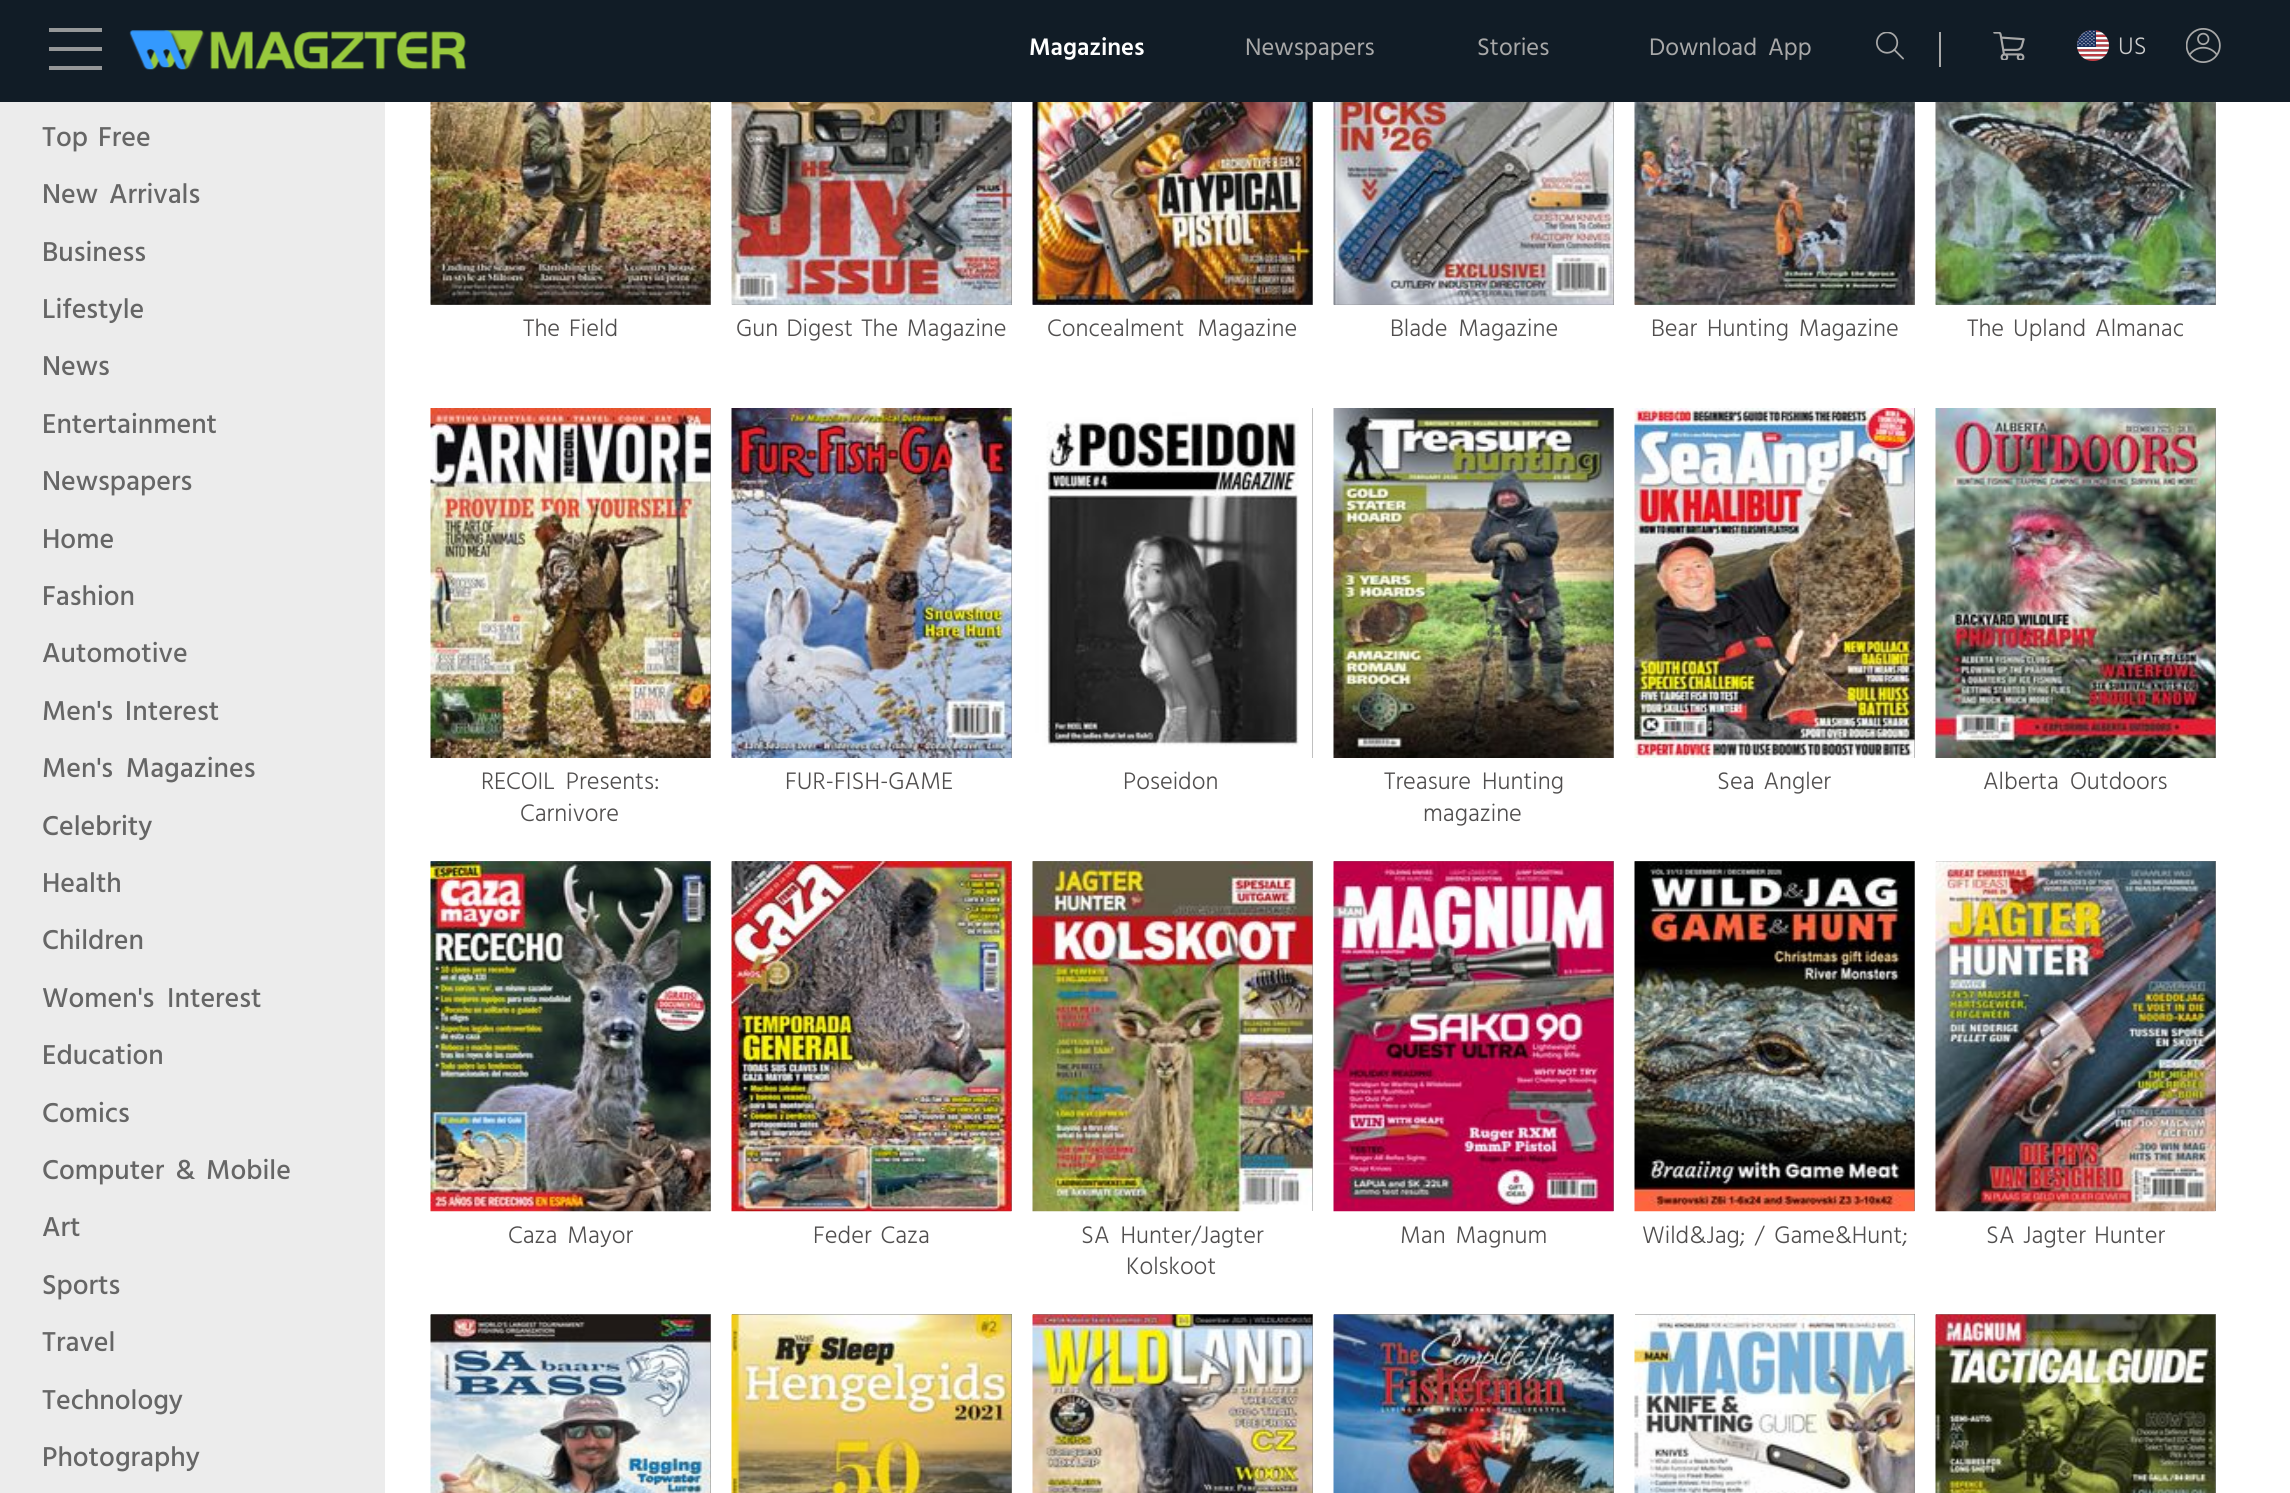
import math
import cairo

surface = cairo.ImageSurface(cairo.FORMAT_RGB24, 2290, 1493)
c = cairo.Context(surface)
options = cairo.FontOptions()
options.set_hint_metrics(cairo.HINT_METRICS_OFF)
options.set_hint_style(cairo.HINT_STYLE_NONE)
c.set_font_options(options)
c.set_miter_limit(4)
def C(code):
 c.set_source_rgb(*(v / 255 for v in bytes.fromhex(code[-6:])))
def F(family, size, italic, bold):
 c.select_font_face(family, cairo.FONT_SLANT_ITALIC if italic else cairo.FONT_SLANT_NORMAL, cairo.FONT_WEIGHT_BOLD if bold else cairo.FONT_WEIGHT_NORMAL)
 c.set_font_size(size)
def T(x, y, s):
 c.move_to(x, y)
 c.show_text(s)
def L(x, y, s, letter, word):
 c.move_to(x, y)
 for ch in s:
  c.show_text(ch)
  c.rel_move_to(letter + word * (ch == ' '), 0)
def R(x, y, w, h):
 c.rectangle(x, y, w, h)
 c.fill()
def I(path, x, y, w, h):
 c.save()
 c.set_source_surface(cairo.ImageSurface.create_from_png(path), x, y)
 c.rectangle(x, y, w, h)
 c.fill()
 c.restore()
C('ffffff')
c.paint()
C('111c26')
R(0,0,2290,102)
C('959798')
R(49,28,53,4)
R(49,47,53,4)
R(49,66,53,4)
I('1.png',129,30,337,40)
F('Hind SemiBold',24.5,0,0)
C('ffffff')
T(1029,55,'Magazines')
F('Hind',24.5,0,0)
C('a8a8a8')
T(1245,55,'Newspapers')
T(1477,55,'Stories')
L(1649,55,'Download App',0,5)
R(1939,32,2,35)
I('2.png',1876,32,28,28)
I('3.png',1993,32,32,28)
I('4.png',2077,30,32,31)
F('Hind Light',24.5,0,0)
C('cccccc')
T(2118,54,'US')
I('5.png',2186,28,35,35)
C('ececec')
R(0,102,385,1391)
F('Hind Medium',28,0,0)
C('666666')
L(42,146,'Top Free',0,3)
L(42,203,'New Arrivals',0,4)
T(42,261,'Business')
T(42,318,'Lifestyle')
T(42,375,'News')
T(42,433,'Entertainment')
T(42,490,'Newspapers')
T(42,548,'Home')
T(42,605,'Fashion')
T(42,662,'Automotive')
L(42,720,'Men\'s Interest',0,5)
L(42,777,'Men\'s Magazines',0,6)
T(42,835,'Celebrity')
T(42,892,'Health')
T(42,949,'Children')
L(42,1007,'Women\'s Interest',0,6)
T(42,1064,'Education')
T(42,1122,'Comics')
L(42,1179,'Computer & Mobile',0,4)
T(42,1236,'Art')
T(42,1294,'Sports')
T(42,1351,'Travel')
T(42,1409,'Technology')
T(42,1466,'Photography')
C('808080')
R(431,102,280,203)
I('6.png',430,102,281,203)
F('Hind Light',24.5,0,0)
C('504e4e')
L(523,336,'The Field',0,3)
C('808080')
R(732,102,280,203)
I('7.png',731,102,281,203)
C('504e4e')
L(736,336,'Gun Digest The Magazine',0,2.5)
C('808080')
R(1033,102,280,203)
I('8.png',1032,102,281,203)
C('504e4e')
L(1047,336,'Concealment Magazine',0,7)
C('808080')
R(1334,102,280,203)
I('9.png',1333,102,281,203)
C('504e4e')
L(1390,336,'Blade Magazine',0,5)
C('808080')
R(1635,102,280,203)
I('10.png',1634,102,281,203)
C('504e4e')
L(1651,336,'Bear Hunting Magazine',0,4)
C('808080')
R(1936,102,280,203)
I('11.png',1935,102,281,203)
C('504e4e')
L(1967,336,'The Upland Almanac',0,3)
C('808080')
R(710,408,1,350)
I('12.png',430,408,281,350)
C('504e4e')
L(481,789,'RECOIL Presents:',0,5)
T(520,821,'Carnivore')
C('808080')
R(1011,408,1,350)
I('13.png',731,408,281,350)
C('504e4e')
T(785,789,'FUR-FISH-GAME')
C('808080')
R(1312,408,1,350)
I('14.png',1033,408,280,350)
C('504e4e')
T(1123,789,'Poseidon')
C('808080')
R(1613,408,1,350)
I('15.png',1333,408,281,350)
C('504e4e')
L(1384,789,'Treasure Hunting',0,5)
T(1423,821,'magazine')
C('808080')
R(1914,408,1,350)
I('16.png',1634,408,281,350)
C('504e4e')
L(1717,789,'Sea Angler',0,3)
C('808080')
R(2215,408,1,350)
I('17.png',1935,408,281,350)
C('504e4e')
L(1983,789,'Alberta Outdoors',0,5)
C('808080')
R(431,861,280,350)
I('18.png',430,861,281,351)
C('504e4e')
L(508,1243,'Caza Mayor',0,4)
C('808080')
R(732,861,280,350)
I('19.png',731,861,281,351)
C('504e4e')
L(813,1243,'Feder Caza',0,3)
C('808080')
R(1033,861,280,350)
I('20.png',1032,861,281,351)
C('504e4e')
L(1081,1243,'SA Hunter/Jagter',0,5)
T(1126,1274,'Kolskoot')
C('808080')
R(1334,861,280,350)
I('21.png',1333,861,281,351)
C('504e4e')
L(1400,1243,'Man Magnum',0,4)
C('808080')
R(1635,861,280,350)
I('22.png',1634,861,281,351)
C('504e4e')
L(1642,1243,'Wild&Jag; / Game&Hunt;',0,4)
C('808080')
R(1936,861,280,350)
I('23.png',1935,861,281,351)
C('504e4e')
L(1986,1243,'SA Jagter Hunter',0,2.5)
C('808080')
R(431,1314,280,179)
I('24.png',430,1314,281,179)
R(732,1314,280,179)
I('25.png',731,1314,281,179)
R(1033,1314,280,179)
I('26.png',1032,1314,281,179)
R(1334,1314,280,179)
I('27.png',1333,1314,281,179)
R(1635,1314,280,179)
I('28.png',1634,1314,281,179)
R(1936,1314,280,179)
I('29.png',1935,1314,281,179)
surface.write_to_png('o.png')
